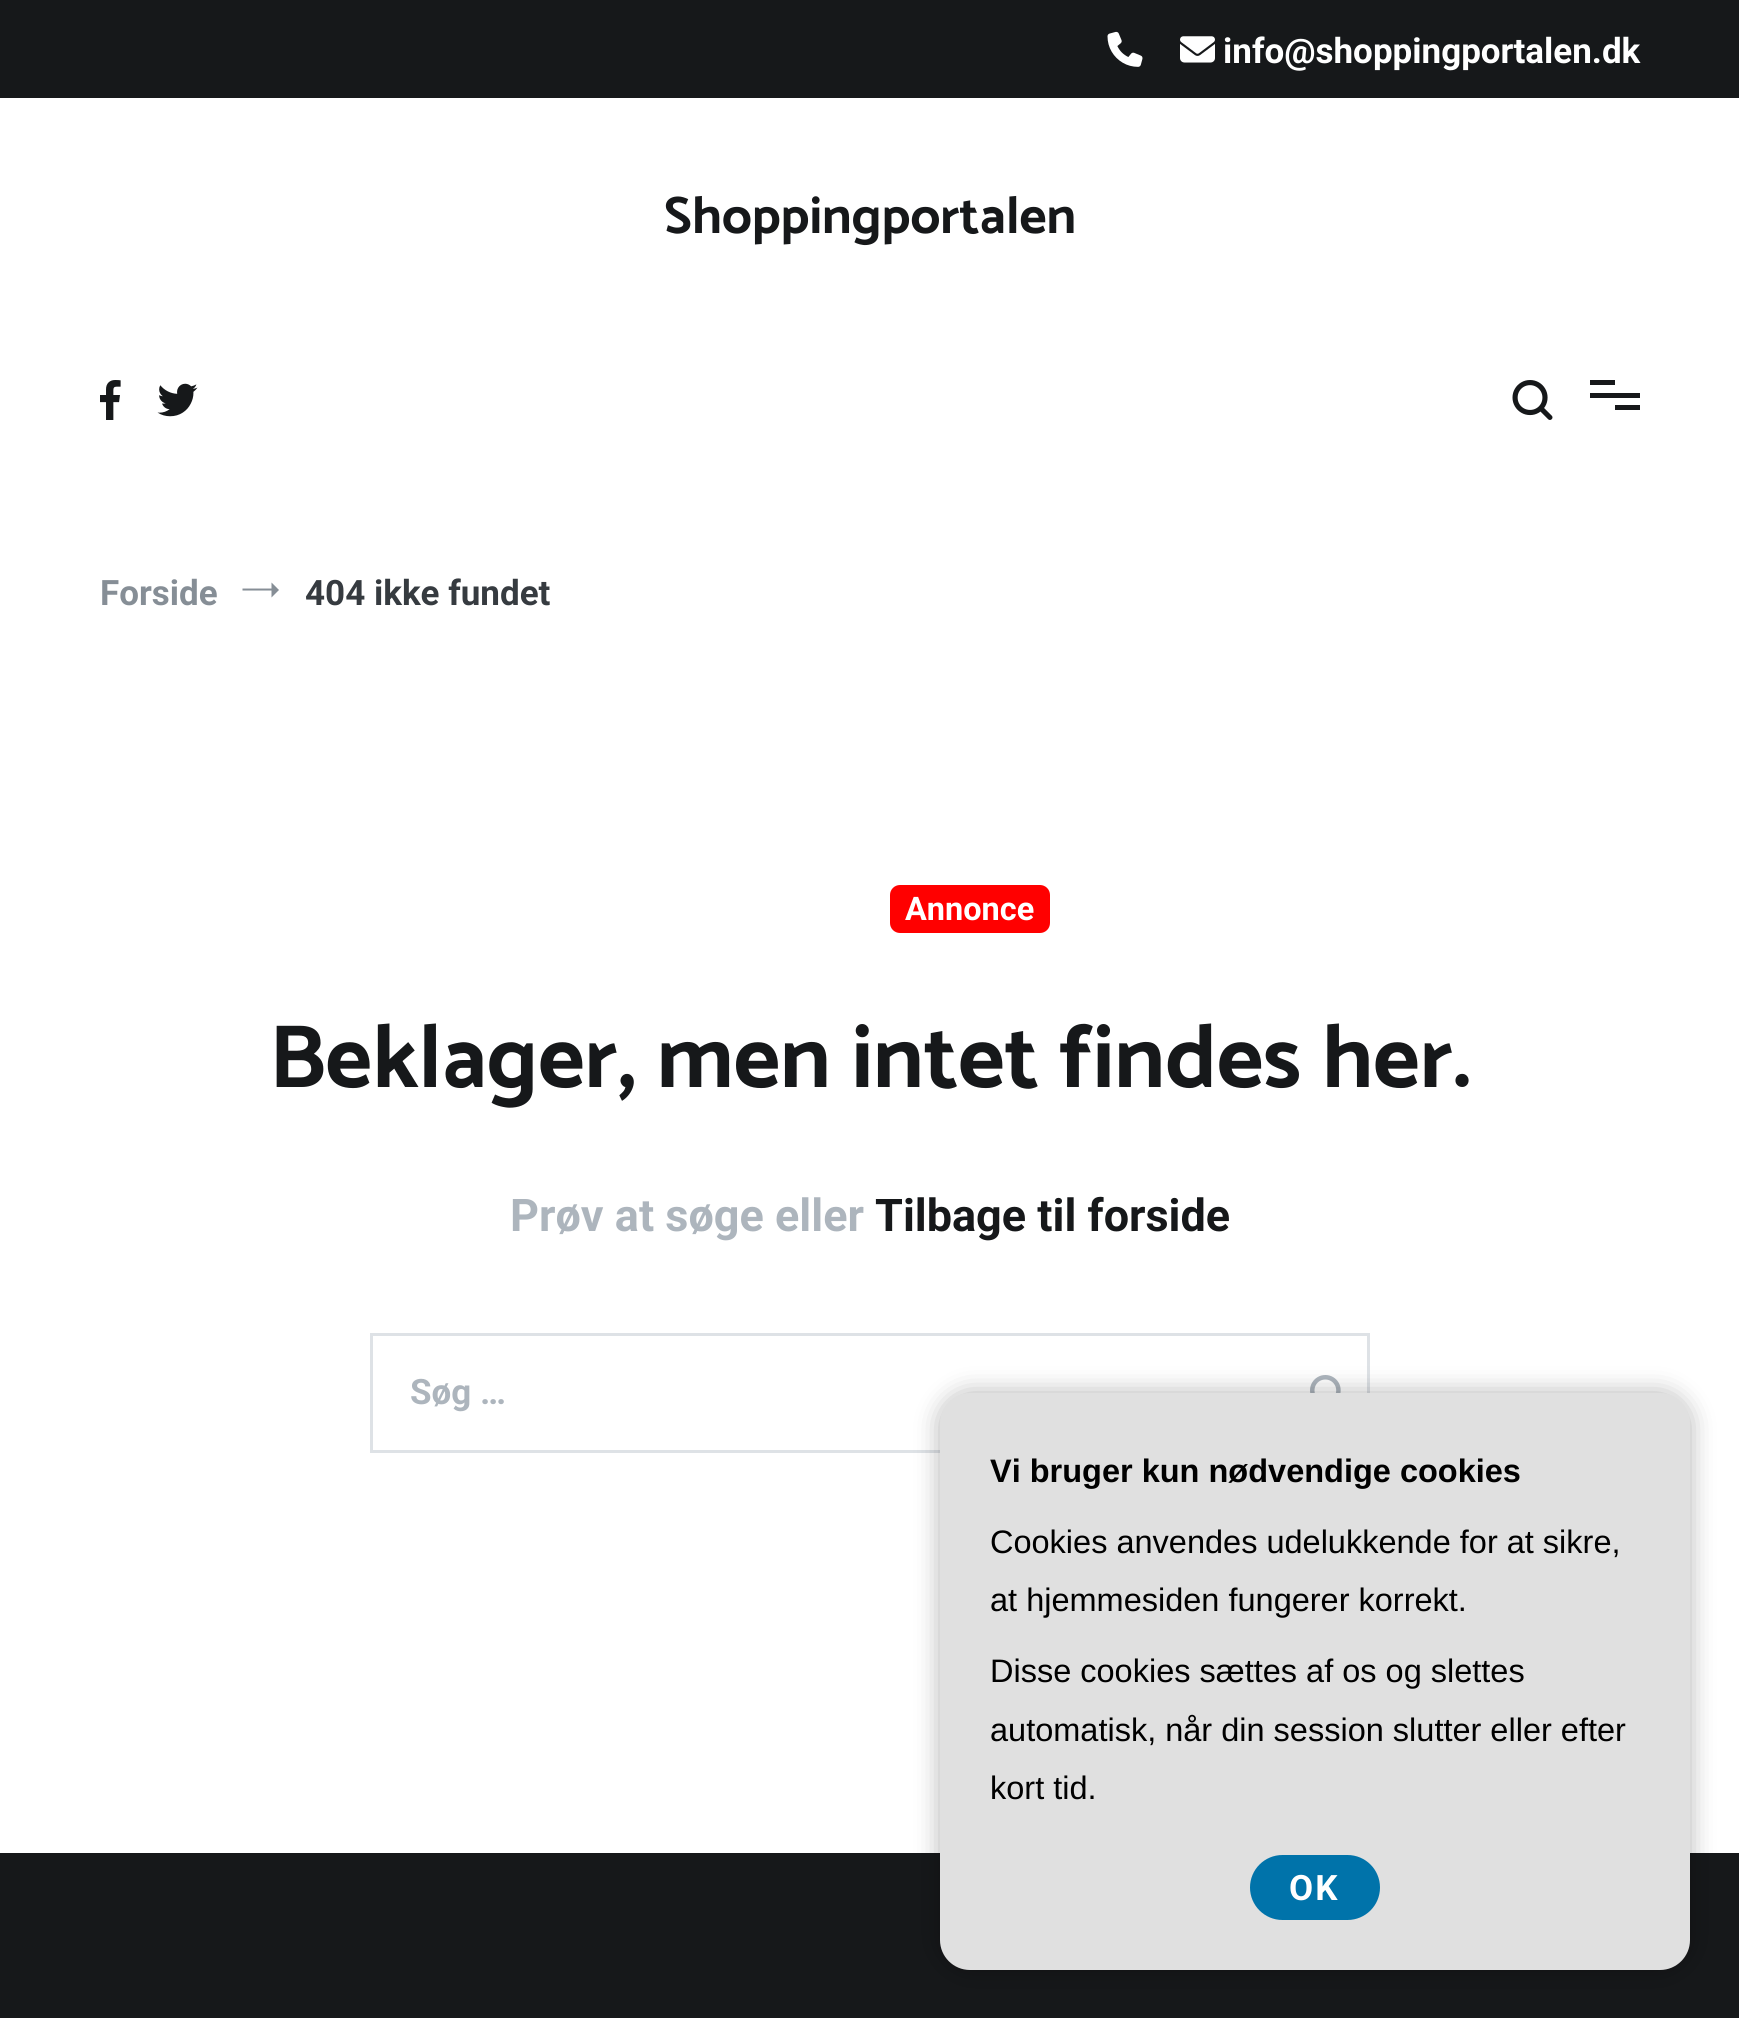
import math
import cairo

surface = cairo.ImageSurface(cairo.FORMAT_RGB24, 1739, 2018)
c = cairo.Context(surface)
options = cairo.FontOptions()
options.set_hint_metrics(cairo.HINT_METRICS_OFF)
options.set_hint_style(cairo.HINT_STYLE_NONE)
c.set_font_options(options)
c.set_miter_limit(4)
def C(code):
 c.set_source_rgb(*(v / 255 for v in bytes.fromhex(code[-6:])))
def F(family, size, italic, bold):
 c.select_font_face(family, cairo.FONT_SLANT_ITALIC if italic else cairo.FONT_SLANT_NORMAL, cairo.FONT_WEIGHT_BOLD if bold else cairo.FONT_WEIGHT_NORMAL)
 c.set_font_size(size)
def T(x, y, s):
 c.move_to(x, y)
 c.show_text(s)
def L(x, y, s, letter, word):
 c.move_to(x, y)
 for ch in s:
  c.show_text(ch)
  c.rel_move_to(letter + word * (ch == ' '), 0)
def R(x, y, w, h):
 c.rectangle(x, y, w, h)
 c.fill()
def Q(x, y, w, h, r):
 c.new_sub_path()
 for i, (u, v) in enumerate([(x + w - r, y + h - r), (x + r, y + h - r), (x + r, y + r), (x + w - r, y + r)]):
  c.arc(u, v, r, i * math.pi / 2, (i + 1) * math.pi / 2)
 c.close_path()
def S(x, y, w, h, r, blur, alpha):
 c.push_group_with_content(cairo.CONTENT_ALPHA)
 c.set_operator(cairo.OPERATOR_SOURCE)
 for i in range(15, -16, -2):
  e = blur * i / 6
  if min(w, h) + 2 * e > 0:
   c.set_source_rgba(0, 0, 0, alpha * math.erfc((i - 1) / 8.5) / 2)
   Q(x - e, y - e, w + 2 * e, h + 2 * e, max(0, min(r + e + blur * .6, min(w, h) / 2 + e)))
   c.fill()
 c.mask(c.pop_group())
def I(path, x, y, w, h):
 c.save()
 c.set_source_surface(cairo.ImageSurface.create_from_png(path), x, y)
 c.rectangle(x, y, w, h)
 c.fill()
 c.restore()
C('ffffff')
c.paint()
C('16181a')
R(0,0,1739,98)
I('1.png',1107,31,36,36)
I('2.png',1180,36,35,27)
F('Roboto',35,0,1)
C('ffffff')
T(1223,63,'info@shoppingportalen.dk')
F('Catamaran',52.5,0,1)
C('16181a')
T(664,233,'Shoppingportalen')
I('3.png',100,380,21,40)
I('4.png',157,383,41,34)
I('5.png',1512,380,41,40)
R(1590,380,25,5)
R(1590,393,50,5)
R(1615,405,25,5)
F('Roboto',35,0,1)
C('868e96')
T(100,605,'Forside')
c.new_path()
c.move_to(279,590)
c.line_to(271.5,597.5)
c.line_to(271.5,582.5)
c.close_path()
c.move_to(242.5,588.5)
c.line_to(272,588.5)
c.line_to(272,590.5)
c.line_to(242.5,590.5)
c.close_path()
c.fill()
C('363b40')
T(305,605,'404 ikke fundet')
C('ff0000')
Q(890,885,160,48,10)
c.fill()
F('Roboto',32.5,0,1)
C('ffffff')
T(905,920,'Annonce')
F('Catamaran',90,0,1)
C('16181a')
T(269,1087,'Beklager, men intet findes her.')
F('Roboto',45,0,1)
C('adb5bd')
T(510,1231,'Prøv at søge eller')
C('16181a')
T(875,1231,'Tilbage til forside')
c.rectangle(371.5,1334.5,997,117)
C('dee2e6')
c.set_line_width(3)
c.stroke()
F('Roboto',35,0,1)
C('adb5bd')
T(410,1404,'Søg …')
I('6.png',1310,1375,31,18)
C('16181a')
R(0,1853,1739,165)
C('000000')
S(940,1393,750,577,30,12.5,.3)
C('e0e0e0')
Q(940,1393,750,577,30)
c.fill()
F('Liberation Sans',32.5,0,1)
C('000000')
T(990,1482,'Vi bruger kun nødvendige cookies')
F('Liberation Sans',32.5,0,0)
T(990,1553,'Cookies anvendes udelukkende for at sikre,')
T(990,1611,'at hjemmesiden fungerer korrekt.')
T(990,1682,'Disse cookies sættes af os og slettes')
T(990,1741,'automatisk, når din session slutter eller efter')
T(990,1799,'kort tid.')
C('0073aa')
Q(1250,1855,130,65,32.5)
c.fill()
F('Roboto',35,0,1)
C('ffffff')
L(1289,1900,'OK',2,0)
surface.write_to_png('o.png')
